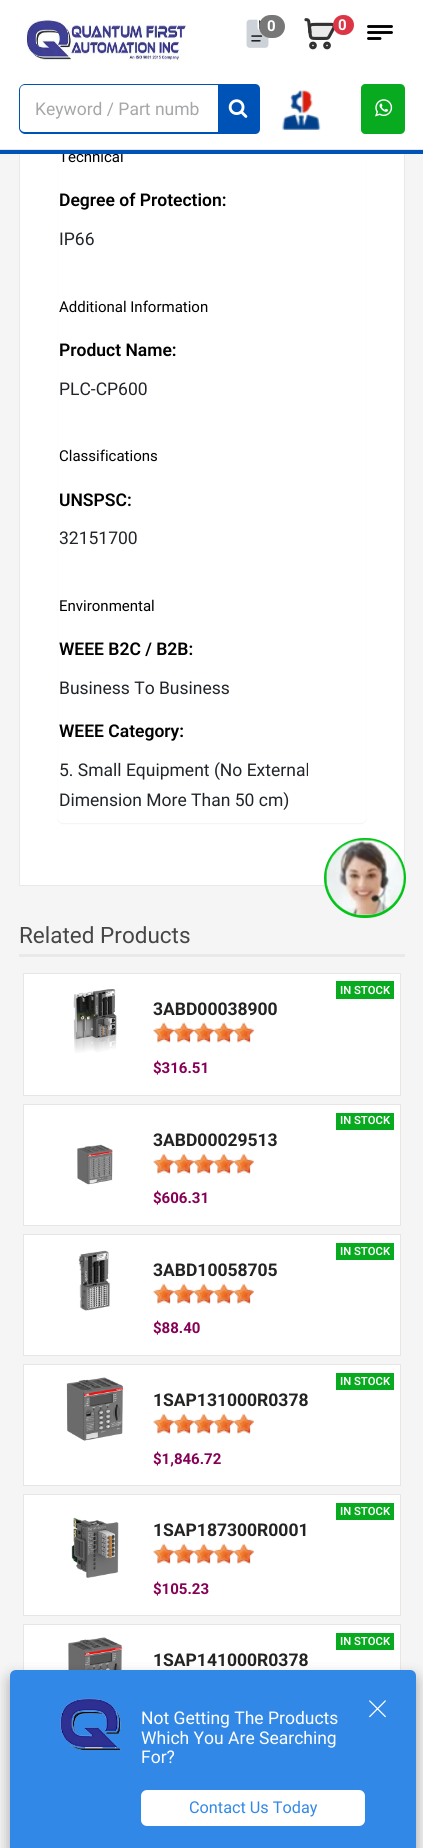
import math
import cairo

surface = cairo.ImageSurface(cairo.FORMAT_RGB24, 423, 1848)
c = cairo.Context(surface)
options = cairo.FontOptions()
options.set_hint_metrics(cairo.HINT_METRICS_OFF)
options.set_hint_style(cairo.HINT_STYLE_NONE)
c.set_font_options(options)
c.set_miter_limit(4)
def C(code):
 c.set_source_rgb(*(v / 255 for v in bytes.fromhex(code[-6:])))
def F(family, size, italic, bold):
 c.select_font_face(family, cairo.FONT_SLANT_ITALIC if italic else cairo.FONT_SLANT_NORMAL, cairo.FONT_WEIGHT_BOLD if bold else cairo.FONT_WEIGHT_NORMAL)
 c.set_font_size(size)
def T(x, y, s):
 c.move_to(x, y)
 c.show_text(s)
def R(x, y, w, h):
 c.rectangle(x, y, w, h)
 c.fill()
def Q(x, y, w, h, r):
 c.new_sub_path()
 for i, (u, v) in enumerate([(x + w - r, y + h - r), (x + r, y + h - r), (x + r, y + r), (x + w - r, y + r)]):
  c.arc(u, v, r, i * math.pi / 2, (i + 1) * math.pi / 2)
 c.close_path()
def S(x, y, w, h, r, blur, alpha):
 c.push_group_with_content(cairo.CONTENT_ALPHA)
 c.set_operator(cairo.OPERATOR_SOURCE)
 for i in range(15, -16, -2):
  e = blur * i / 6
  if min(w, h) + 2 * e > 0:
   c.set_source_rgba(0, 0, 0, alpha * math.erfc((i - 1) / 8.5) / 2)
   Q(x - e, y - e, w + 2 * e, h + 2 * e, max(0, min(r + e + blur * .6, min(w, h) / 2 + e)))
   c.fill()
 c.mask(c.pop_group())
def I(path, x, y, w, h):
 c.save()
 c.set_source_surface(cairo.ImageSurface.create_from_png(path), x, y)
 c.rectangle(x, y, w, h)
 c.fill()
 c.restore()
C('f5f5f5')
c.paint()
C('ffffff')
R(20,154,384,731)
c.rectangle(19.5,-.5,385,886)
C('e9e9e9')
c.set_line_width(1)
c.stroke()
C('000000')
S(58,-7,308,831,5,.5,.05)
C('ffffff')
Q(58,-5,308,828,5)
c.fill()
F('Roboto',15,0,0)
C('000000')
T(59,162,'Technical')
C('0053b6')
R(0,150,423,4)
C('ffffff')
R(0,0,423,149)
I('1.png',25,19,161,44)
I('2.png',246,19,23,29)
C('777777')
Q(259,15,26,23,11.5)
c.fill()
F('Roboto',15,0,1)
C('ffffff')
T(267,31,'0')
I('3.png',304,18,31,32)
C('dc3545')
Q(333,15,21,20,10)
c.fill()
C('ffffff')
T(338,30,'0')
c.new_path()
c.move_to(368.5,32.5)
c.line_to(391.5,32.5)
c.move_to(368.5,26.5)
c.line_to(391.5,26.5)
c.move_to(368.5,38.5)
c.line_to(380,38.5)
C('000000')
c.set_line_width(2.9)
c.set_line_cap(cairo.LINE_CAP_ROUND)
c.set_line_join(cairo.LINE_JOIN_ROUND)
c.stroke()
C('0053b6')
c.set_fill_rule(cairo.FILL_RULE_EVEN_ODD)
c.new_path()
c.move_to(25,84)
c.line_to(218,84)
c.line_to(218,134)
c.line_to(25,134)
c.curve_to(22,134,19,131,19,128)
c.line_to(19,90)
c.curve_to(19,87,22,84,25,84)
c.close_path()
c.move_to(25,85)
c.line_to(218,85)
c.line_to(218,132)
c.line_to(25,132)
c.curve_to(22,132,20,130,20,128)
c.line_to(20,90)
c.curve_to(20,87,22,85,25,85)
c.close_path()
c.fill()
F('Roboto',17.5,0,0)
C('a6a7a8')
T(35,115,'Keyword / Part numb')
C('0053b6')
c.new_path()
c.move_to(218,84)
c.line_to(255,84)
c.curve_to(258,84,260,86,260,89)
c.line_to(260,129)
c.curve_to(260,132,258,134,255,134)
c.line_to(218,134)
c.close_path()
c.fill()
I('4.png',228,99,20,19)
I('5.png',282,90,39,40)
C('08aa1f')
c.new_path()
c.move_to(365,84)
c.line_to(400,84)
c.curve_to(403,84,405,86,405,89)
c.line_to(405,129)
c.curve_to(405,132,403,134,400,134)
c.line_to(365,134)
c.curve_to(363,134,361,132,361,130)
c.line_to(361,88)
c.curve_to(361,86,363,84,365,84)
c.close_path()
c.fill()
I('6.png',375,99,18,18)
C('e4e4e4')
R(0,149,423,1)
F('Roboto SemiBold',17.5,0,0)
C('000000')
T(59,206,'Degree of Protection:')
F('Roboto',17.5,0,0)
C('212529')
T(59,245,'IP66')
F('Roboto',15,0,0)
C('000000')
T(59,312,'Additional Information')
F('Roboto SemiBold',17.5,0,0)
T(59,356,'Product Name:')
F('Roboto',17.5,0,0)
C('212529')
T(59,395,'PLC-CP600')
F('Roboto',15,0,0)
C('000000')
T(59,461,'Classifications')
F('Roboto SemiBold',17.5,0,0)
T(59,506,'UNSPSC:')
F('Roboto',17.5,0,0)
C('212529')
T(59,544,'32151700')
F('Roboto',15,0,0)
C('000000')
T(59,611,'Environmental')
F('Roboto SemiBold',17.5,0,0)
T(59,655,'WEEE B2C / B2B:')
F('Roboto',17.5,0,0)
C('212529')
T(59,694,'Business To Business')
F('Roboto SemiBold',17.5,0,0)
C('000000')
T(59,737,'WEEE Category:')
F('Roboto',17.5,0,0)
C('212529')
T(59,776,'5. Small Equipment (No External')
T(59,806,'Dimension More Than 50 cm)')
C('e9e9e9')
R(19,954,386,3)
F('Roboto',22.5,0,0)
C('464646')
T(19,943,'Related Products')
C('ffffff')
c.rectangle(23.5,973.5,377,122)
c.fill_preserve()
C('eae5e5')
c.set_line_width(1)
c.set_line_cap(cairo.LINE_CAP_BUTT)
c.set_line_join(cairo.LINE_JOIN_MITER)
c.stroke()
C('08aa1f')
R(336,981,58,18)
F('Roboto SemiBold',11.25,0,0)
C('ffffff')
T(340,994,'IN STOCK')
I('7.png',73,989,44,64)
F('Roboto',17.5,0,1)
C('232323')
T(153,1015,'3ABD00038900')
I('8.png',153,1022,101,21)
I('9.png',153,1022,101,21)
F('Roboto',15,0,1)
C('860055')
T(153,1073,'$316.51')
C('ffffff')
c.rectangle(23.5,1104.5,377,121)
c.fill_preserve()
C('eae5e5')
c.stroke()
C('08aa1f')
R(336,1113,58,17)
F('Roboto SemiBold',11.25,0,0)
C('ffffff')
T(340,1124,'IN STOCK')
I('10.png',77,1144,36,41)
F('Roboto',17.5,0,1)
C('232323')
T(153,1146,'3ABD00029513')
I('11.png',153,1153,101,21)
I('12.png',153,1153,101,21)
F('Roboto',15,0,1)
C('860055')
T(153,1203,'$606.31')
C('ffffff')
c.rectangle(23.5,1234.5,377,121)
c.fill_preserve()
C('eae5e5')
c.stroke()
C('08aa1f')
R(336,1243,58,17)
F('Roboto SemiBold',11.25,0,0)
C('ffffff')
T(340,1255,'IN STOCK')
I('13.png',78,1250,32,61)
F('Roboto',17.5,0,1)
C('232323')
T(153,1276,'3ABD10058705')
I('14.png',153,1283,101,21)
I('15.png',153,1283,101,21)
F('Roboto',15,0,1)
C('860055')
T(153,1333,'$88.40')
C('ffffff')
c.rectangle(23.5,1364.5,377,121)
c.fill_preserve()
C('eae5e5')
c.stroke()
C('08aa1f')
R(336,1373,58,17)
F('Roboto SemiBold',11.25,0,0)
C('ffffff')
T(340,1385,'IN STOCK')
I('16.png',66,1377,57,64)
F('Roboto',17.5,0,1)
C('232323')
T(153,1406,'1SAP131000R0378')
I('17.png',153,1413,101,21)
I('18.png',153,1413,101,21)
F('Roboto',15,0,1)
C('860055')
T(153,1464,'$1,846.72')
C('ffffff')
c.rectangle(23.5,1494.5,377,121)
c.fill_preserve()
C('eae5e5')
c.stroke()
C('08aa1f')
R(336,1503,58,17)
F('Roboto SemiBold',11.25,0,0)
C('ffffff')
T(340,1515,'IN STOCK')
I('19.png',71,1518,48,60)
F('Roboto',17.5,0,1)
C('232323')
T(153,1536,'1SAP187300R0001')
I('20.png',153,1543,101,21)
I('21.png',153,1543,101,21)
F('Roboto',15,0,1)
C('860055')
T(153,1594,'$105.23')
C('ffffff')
R(24,1625,376,45)
c.rectangle(23.5,1624.5,377,121)
C('eae5e5')
c.stroke()
C('08aa1f')
R(336,1633,58,17)
F('Roboto SemiBold',11.25,0,0)
C('ffffff')
T(340,1645,'IN STOCK')
I('22.png',68,1637,54,33)
F('Roboto',17.5,0,1)
C('232323')
T(153,1666,'1SAP141000R0378')
C('000000')
S(10,1678,406,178,0,7.5,.18)
S(10,1678,406,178,6,7.5,.18)
C('3288e6')
c.new_path()
c.move_to(16,1670)
c.line_to(410,1670)
c.curve_to(413.5,1670,416,1672.5,416,1676)
c.line_to(416,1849)
c.line_to(10,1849)
c.line_to(10,1676)
c.curve_to(10,1672.5,12.5,1670,16,1670)
c.close_path()
c.fill()
I('23.png',60,1698,61,53)
F('Roboto',17.5,0,0)
C('ffffff')
T(141,1724,'Not Getting The Products')
T(141,1744,'Which You Are Searching')
T(141,1763,'For?')
Q(141,1790,224,36,6)
c.fill()
F('Roboto',16.25,0,0)
C('3288e6')
T(189,1813,'Contact Us Today')
I('24.png',369,1700,17,18)
Q(325.5,839.5,79,77,38.5)
C('00c316')
c.set_line_width(3)
c.stroke()
I('25.png',325,839,79,77)
surface.write_to_png('o.png')
